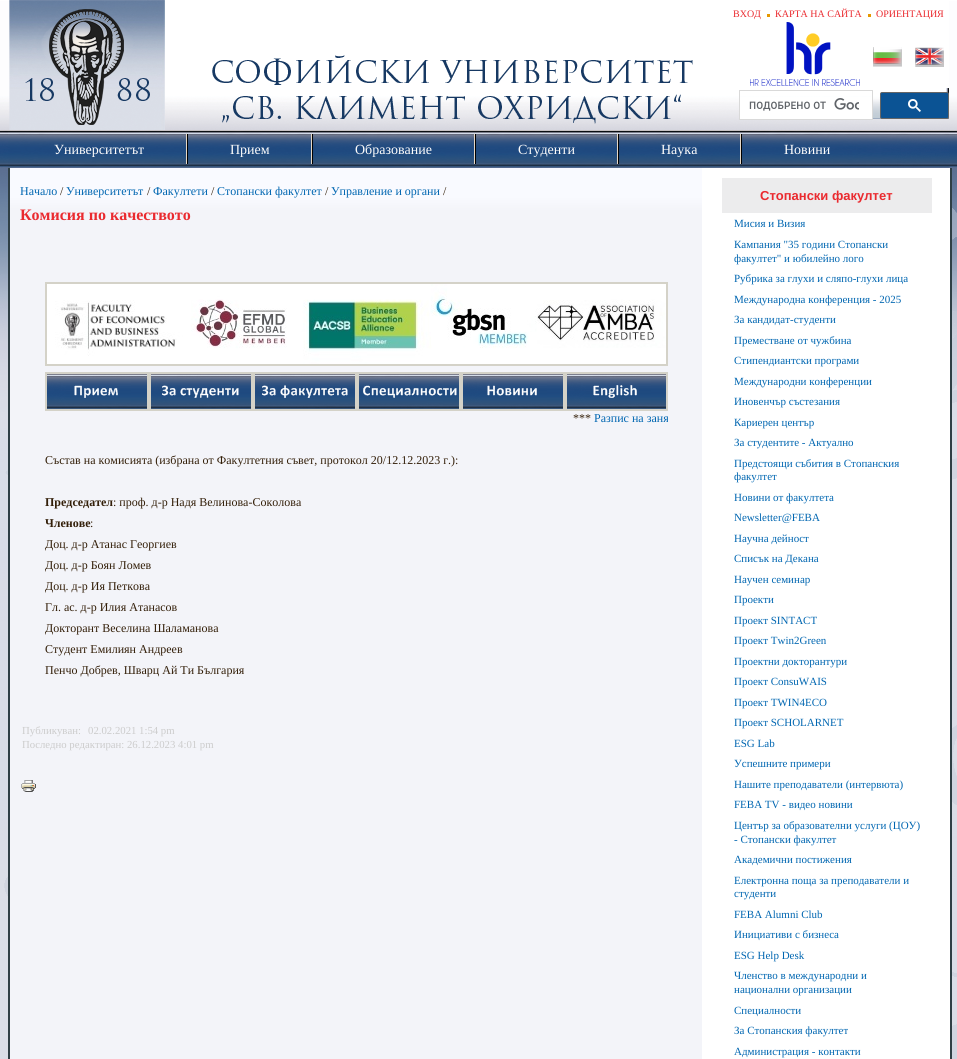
import math
import cairo

surface = cairo.ImageSurface(cairo.FORMAT_RGB24, 957, 1059)
c = cairo.Context(surface)
options = cairo.FontOptions()
options.set_hint_metrics(cairo.HINT_METRICS_OFF)
options.set_hint_style(cairo.HINT_STYLE_NONE)
c.set_font_options(options)
c.set_miter_limit(4)
def C(code):
 c.set_source_rgb(*(v / 255 for v in bytes.fromhex(code[-6:])))
def F(family, size, italic, bold):
 c.select_font_face(family, cairo.FONT_SLANT_ITALIC if italic else cairo.FONT_SLANT_NORMAL, cairo.FONT_WEIGHT_BOLD if bold else cairo.FONT_WEIGHT_NORMAL)
 c.set_font_size(size)
def T(x, y, s):
 c.move_to(x, y)
 c.show_text(s)
def R(x, y, w, h):
 c.rectangle(x, y, w, h)
 c.fill()
def Q(x, y, w, h, r):
 c.new_sub_path()
 for i, (u, v) in enumerate([(x + w - r, y + h - r), (x + r, y + h - r), (x + r, y + r), (x + w - r, y + r)]):
  c.arc(u, v, r, i * math.pi / 2, (i + 1) * math.pi / 2)
 c.close_path()
def I(path, x, y, w, h):
 c.save()
 c.set_source_surface(cairo.ImageSurface.create_from_png(path), x, y)
 c.rectangle(x, y, w, h)
 c.fill()
 c.restore()
C('ffffff')
c.paint()
I('1.png',0,0,957,1059)
I('2.png',9,0,940,130)
F('Liberation Serif',10,0,0)
C('ea2a2f')
T(733,17,'ВХОД')
C('e69800')
R(767,14,3,3)
C('ea2a2f')
T(775,17,'КАРТА НА САЙТА')
C('e69800')
R(868,14,3,3)
C('ea2a2f')
T(876,17,'ОРИЕНТАЦИЯ')
I('3.png',750,22,110,64)
I('4.png',873,47,29,20)
I('5.png',915,47,29,20)
C('ffffff')
R(740,97,132,22)
c.rectangle(739.5,90.5,133,29)
C('d9d9d9')
c.set_line_width(1)
c.stroke()
I('6.png',749,98,110,13)
C('0b5394')
Q(880.5,92.5,68,26,1.5)
c.fill_preserve()
C('666666')
c.stroke()
I('7.png',908,99,13,13)
I('8.png',8,131,941,37)
C('e5d8c7')
R(186,134,1,30)
F('Liberation Serif',14,0,0)
C('fdfcfb')
T(54,154,'Университетът')
C('e5d8c7')
R(311,134,1,30)
C('000000')
R(187,134,1,30)
C('fdfcfb')
T(230,154,'Прием')
C('e5d8c7')
R(474,134,1,30)
C('000000')
R(312,134,1,30)
C('fdfcfb')
T(355,154,'Образование')
C('e5d8c7')
R(617,134,1,30)
C('000000')
R(475,134,1,30)
C('fdfcfb')
T(518,154,'Студенти')
C('e5d8c7')
R(740,134,1,30)
C('000000')
R(618,134,1,30)
C('fdfcfb')
T(661,154,'Наука')
C('000000')
R(741,134,1,30)
C('fdfcfb')
T(784,154,'Новини')
C('ffffff')
R(702,168,248,891)
C('2f3f45')
R(950,168,2,891)
R(8,168,2,891)
gradient = cairo.LinearGradient(356,168,356,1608)
gradient.add_color_stop_rgba(.02,0.976,0.98,1,1)
gradient.add_color_stop_rgba(.03,0.953,0.957,0.976,1)
c.set_source(gradient)
R(10,168,692,891)
F('Liberation Serif',12,0,0)
C('0066b1')
T(20,195,'Начало')
C('331f09')
T(60,195,'/')
C('0066b1')
T(66,195,'Университетът')
C('331f09')
T(147,195,'/')
C('0066b1')
T(153,195,'Факултети')
C('331f09')
T(211,195,'/')
C('0066b1')
T(217,195,'Стопански факултет')
C('331f09')
T(325,195,'/')
C('0066b1')
T(331,195,'Управление и органи')
C('331f09')
T(443,195,'/')
F('Liberation Serif',16,0,1)
C('ea2a2f')
T(20,220,'Комисия по качеството')
c.rectangle(46,283,621,82)
C('d4d2c8')
c.set_line_width(2)
c.stroke()
I('9.png',47,284,619,80)
c.rectangle(46,373,102,37)
c.stroke()
I('10.png',47,374,100,35)
c.rectangle(150,373,102,37)
c.stroke()
I('11.png',151,374,100,35)
c.rectangle(254,373,102,37)
c.stroke()
I('12.png',255,374,100,35)
c.rectangle(358,373,102,37)
c.stroke()
I('13.png',359,374,100,35)
c.rectangle(462,373,102,37)
c.stroke()
I('14.png',463,374,100,35)
c.rectangle(566,373,101,37)
c.stroke()
I('15.png',567,374,99,35)
F('Liberation Serif',12,0,0)
C('331f09')
T(573,422,'***')
c.save()
c.rectangle(45,411,623,15)
c.clip()
C('0066b1')
T(594,422,'Разпис на заня')
c.restore()
T(45,464,'Състав на комисията (избрана от Факултетния съвет, протокол 20/12.12.2023 г.):')
F('Liberation Serif',12,0,1)
T(45,506,'Председател')
F('Liberation Serif',12,0,0)
T(113,506,': проф. д-р Надя Велинова-Соколова')
F('Liberation Serif',12,0,1)
T(45,527,'Членове')
F('Liberation Serif',12,0,0)
T(90,527,':')
c.save()
c.rectangle(45,255,623,444)
c.clip()
T(45,548,'Доц. д-р Атанас Георгиев')
T(45,569,'Доц. д-р Боян Ломев')
T(45,590,'Доц. д-р Ия Петкова')
c.restore()
T(45,611,'Гл. ас. д-р Илия Атанасов')
c.save()
c.rectangle(45,255,623,444)
c.clip()
T(45,632,'Докторант Веселина Шаламанова')
c.restore()
T(45,653,'Студент Емилиян Андреев')
T(45,674,'Пенчо Добрев, Шварц Ай Ти България')
F('Liberation Serif',10.75,0,0)
C('cccccc')
T(22,734,'Публикуван:')
T(88,734,'02.02.2021 1:54 pm')
T(22,748,'Последно редактиран: 26.12.2023 4:01 pm')
I('16.png',21,780,15,12)
C('ececed')
R(722,178,210,35)
F('Liberation Sans',13,0,1)
C('ea2a2f')
T(760,200,'Стопански факултет')
F('Liberation Serif',11,0,0)
C('0066b1')
T(734,227,'Мисия и Визия')
T(734,248,'Кампания "35 години Стопански')
T(734,262,'факултет" и юбилейно лого')
T(734,282,'Рубрика за глухи и сляпо-глухи лица')
T(734,303,'Международна конференция - 2025')
T(734,323,'За кандидат-студенти')
T(734,344,'Преместване от чужбина')
T(734,364,'Стипендиантски програми')
T(734,385,'Международни конференции')
T(734,405,'Иновенчър състезания')
T(734,426,'Кариерен център')
T(734,446,'За студентите - Актуално')
T(734,467,'Предстоящи събития в Стопанския')
T(734,480,'факултет')
T(734,501,'Новини от факултета')
T(734,521,'Newsletter@FEBA')
T(734,542,'Научна дейност')
T(734,562,'Списък на Декана')
T(734,583,'Научен семинар')
T(734,603,'Проекти')
T(734,624,'Проект SINTACT')
T(734,644,'Проект Twin2Green')
T(734,665,'Проектни докторантури')
T(734,685,'Проект ConsuWAIS')
T(734,706,'Проект TWIN4ECO')
T(734,726,'Проект SCHOLARNET')
T(734,747,'ESG Lab')
T(734,767,'Успешните примери')
T(734,788,'Нашите преподаватели (интервюта)')
T(734,808,'FEBA TV - видео новини')
T(734,829,'Център за образователни услуги (ЦОУ)')
T(734,843,'- Стопански факултет')
T(734,863,'Академични постижения')
T(734,884,'Електронна поща за преподаватели и')
T(734,897,'студенти')
T(734,918,'FEBA Alumni Club')
T(734,938,'Инициативи с бизнеса')
T(734,959,'ESG Help Desk')
T(734,979,'Членство в международни и')
T(734,993,'национални организации')
T(734,1014,'Специалности')
T(734,1034,'За Стопанския факултет')
T(734,1055,'Администрация - контакти')
surface.write_to_png('o.png')
